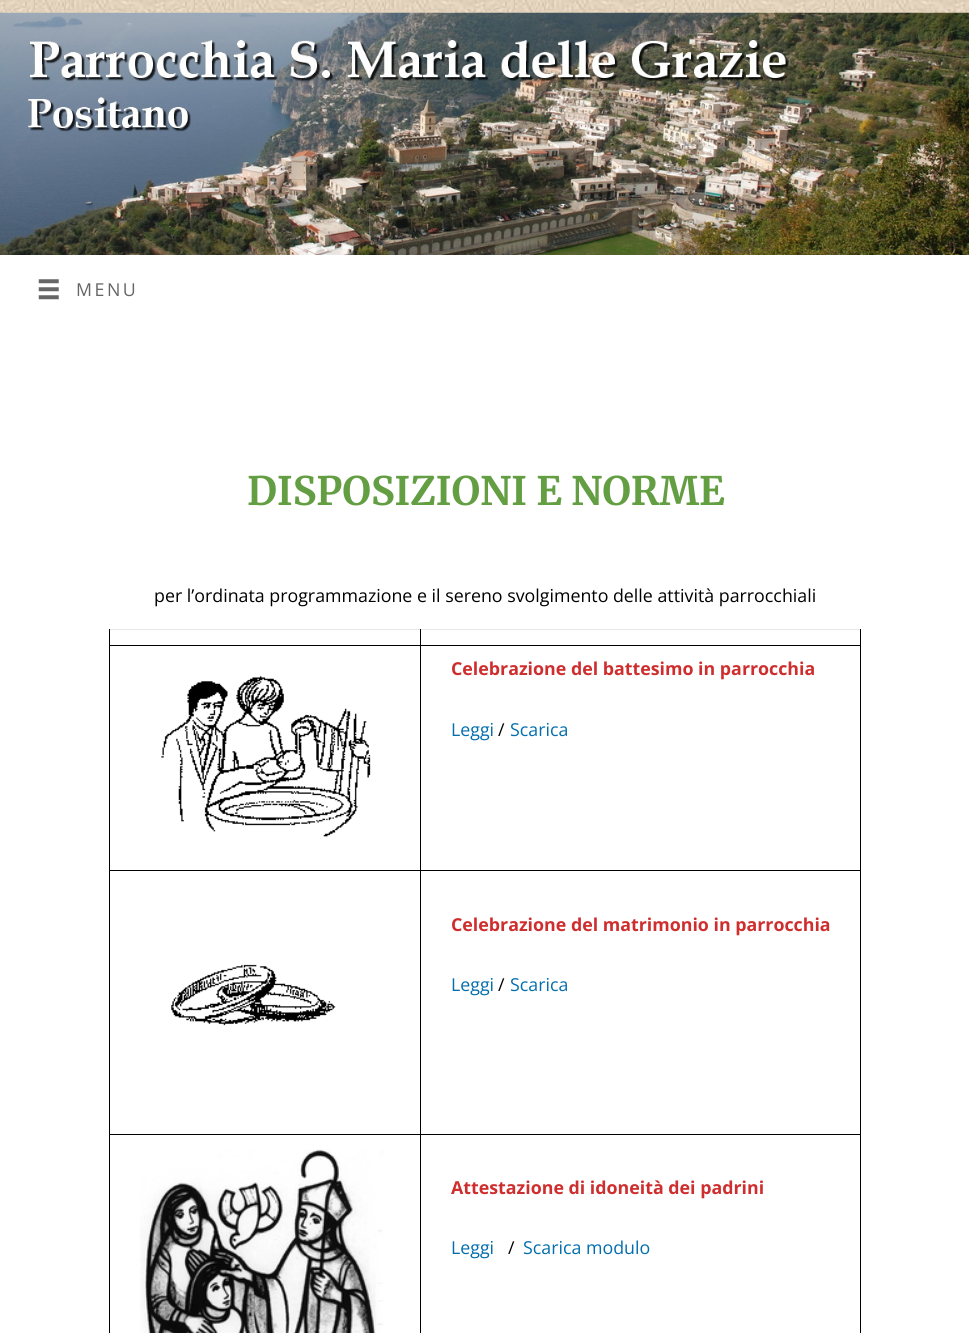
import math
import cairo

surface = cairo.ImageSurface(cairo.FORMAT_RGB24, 969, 1333)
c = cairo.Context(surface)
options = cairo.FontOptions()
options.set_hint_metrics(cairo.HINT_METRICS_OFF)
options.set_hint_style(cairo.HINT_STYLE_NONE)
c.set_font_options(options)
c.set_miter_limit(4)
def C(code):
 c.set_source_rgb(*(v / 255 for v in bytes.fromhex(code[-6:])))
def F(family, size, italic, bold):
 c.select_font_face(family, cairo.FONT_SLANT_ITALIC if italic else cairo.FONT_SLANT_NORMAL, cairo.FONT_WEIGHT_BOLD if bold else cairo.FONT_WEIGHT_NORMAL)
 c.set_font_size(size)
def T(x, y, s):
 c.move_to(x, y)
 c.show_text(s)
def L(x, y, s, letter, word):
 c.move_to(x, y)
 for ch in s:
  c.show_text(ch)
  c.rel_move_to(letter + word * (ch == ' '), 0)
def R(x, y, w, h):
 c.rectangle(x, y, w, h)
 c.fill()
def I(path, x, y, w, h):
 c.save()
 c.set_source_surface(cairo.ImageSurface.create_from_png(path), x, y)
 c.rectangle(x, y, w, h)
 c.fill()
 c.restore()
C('ffffff')
c.paint()
I('1.png',0,0,969,13)
I('2.png',0,12,969,243)
I('3.png',38,279,21,21)
F('Open Sans',17.8,0,0)
C('666666')
L(76,296,'MENU',2.5,0)
F('Merriweather',39.25,0,1)
C('639e43')
T(247,505,'DISPOSIZIONI E NORME')
F('Open Sans',17.8,0,0)
C('000000')
T(154,602,'per l’ordinata programmazione e il sereno svolgimento delle attività parrocchiali')
C('e7e7e7')
R(109,629,752,1)
C('000000')
R(420,1134,1,199)
R(860,629,1,704)
R(420,1134,441,1)
R(420,870,1,265)
R(420,870,441,1)
R(420,645,1,226)
R(420,645,441,1)
R(420,629,1,17)
R(109,1134,1,199)
R(109,1134,312,1)
R(109,870,1,265)
R(109,870,312,1)
R(109,645,1,226)
R(109,645,312,1)
R(109,629,1,17)
I('4.png',161,676,210,161)
F('Open Sans',17.8,0,1)
C('cf2e2e')
T(451,675,'Celebrazione del battesimo in parrocchia')
F('Open Sans',17.8,0,0)
C('036ead')
T(451,736,'Leggi')
C('000000')
T(498,736,'/')
C('036ead')
T(510,736,'Scarica')
I('5.png',171,964,165,62)
F('Open Sans',17.8,0,1)
C('cf2e2e')
T(451,931,'Celebrazione del matrimonio in parrocchia')
F('Open Sans',17.8,0,0)
C('036ead')
T(451,991,'Leggi')
C('000000')
T(498,991,'/')
C('036ead')
T(510,991,'Scarica')
I('6.png',140,1149,244,184)
F('Open Sans',17.8,0,1)
C('cf2e2e')
T(451,1194,'Attestazione di idoneità dei padrini')
F('Open Sans',17.8,0,0)
C('036ead')
T(451,1254,'Leggi')
C('000000')
T(508,1254,'/')
C('036ead')
T(523,1254,'Scarica modulo')
surface.write_to_png('o.png')
